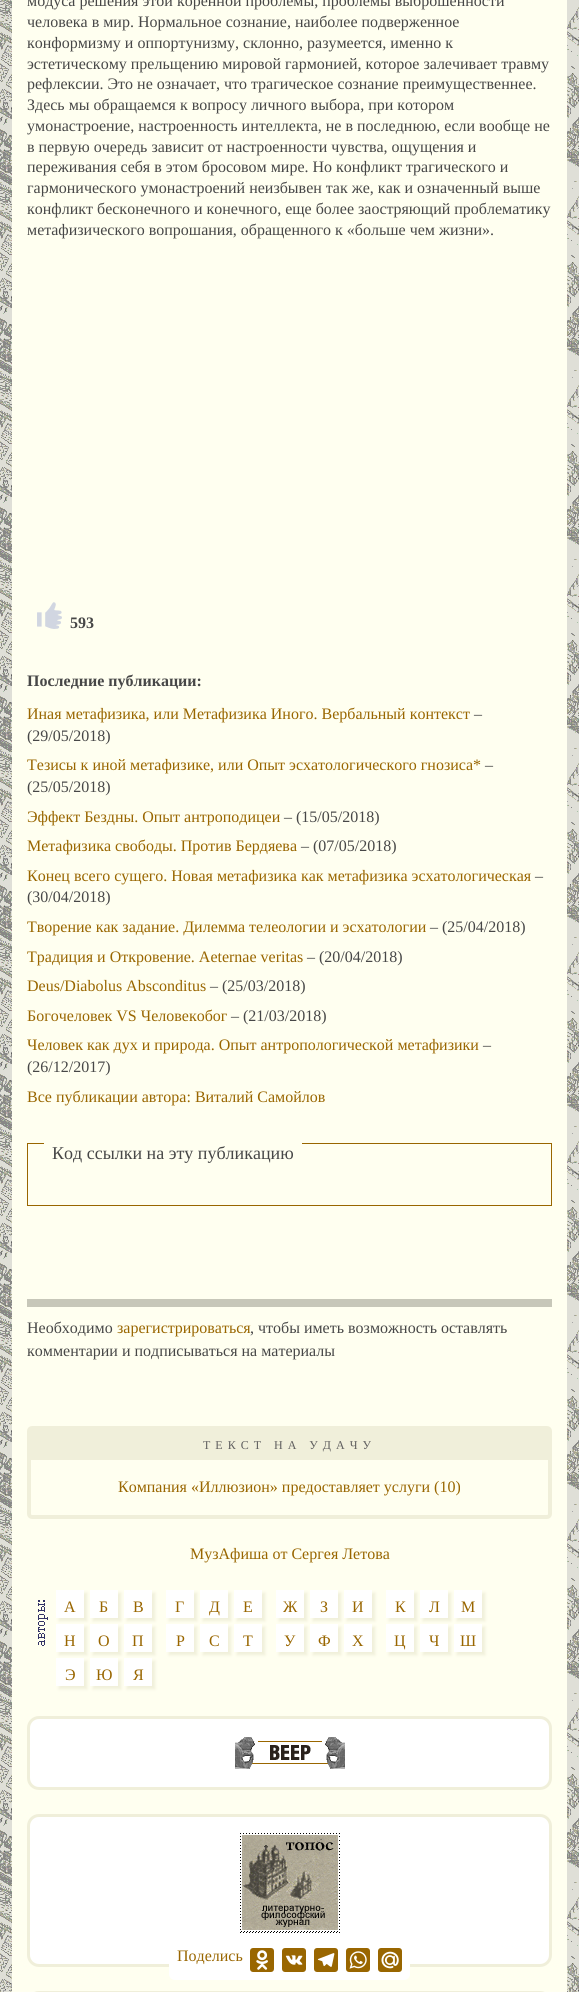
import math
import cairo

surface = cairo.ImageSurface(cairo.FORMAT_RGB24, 579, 1992)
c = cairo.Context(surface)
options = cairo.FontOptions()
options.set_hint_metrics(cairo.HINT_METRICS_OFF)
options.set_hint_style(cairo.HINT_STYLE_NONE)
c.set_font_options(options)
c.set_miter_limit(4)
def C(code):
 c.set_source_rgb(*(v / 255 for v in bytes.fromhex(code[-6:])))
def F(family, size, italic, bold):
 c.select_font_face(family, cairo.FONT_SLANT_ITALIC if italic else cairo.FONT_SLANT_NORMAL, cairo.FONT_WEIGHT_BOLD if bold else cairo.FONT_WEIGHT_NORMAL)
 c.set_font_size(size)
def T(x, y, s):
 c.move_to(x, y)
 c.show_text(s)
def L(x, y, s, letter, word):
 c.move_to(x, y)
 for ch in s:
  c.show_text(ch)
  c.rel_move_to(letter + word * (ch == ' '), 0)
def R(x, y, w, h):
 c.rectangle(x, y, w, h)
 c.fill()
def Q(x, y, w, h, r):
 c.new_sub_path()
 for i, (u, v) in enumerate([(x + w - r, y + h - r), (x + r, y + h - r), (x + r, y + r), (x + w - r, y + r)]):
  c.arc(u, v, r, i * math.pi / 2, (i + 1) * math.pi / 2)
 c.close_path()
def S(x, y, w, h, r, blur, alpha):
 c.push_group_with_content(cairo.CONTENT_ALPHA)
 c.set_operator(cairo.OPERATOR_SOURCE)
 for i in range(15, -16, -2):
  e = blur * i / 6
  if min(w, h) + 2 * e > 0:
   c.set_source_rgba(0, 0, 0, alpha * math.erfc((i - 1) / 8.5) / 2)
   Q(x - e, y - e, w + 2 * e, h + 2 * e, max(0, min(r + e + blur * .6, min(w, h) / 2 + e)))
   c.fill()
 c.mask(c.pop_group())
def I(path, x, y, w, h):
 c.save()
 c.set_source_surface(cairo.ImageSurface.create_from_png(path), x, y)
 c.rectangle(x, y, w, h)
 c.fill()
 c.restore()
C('ffffff')
c.paint()
I('1.png',0,0,579,1992)
C('fffff0')
R(12,0,555,1992)
C('c7c7b9')
R(27,1299,525,8)
F('Liberation Serif',16,0,0)
C('474747')
T(27,6,'модуса решения этой коренной проблемы, проблемы выброшенности')
T(27,27,'человека в мир. Нормальное сознание, наиболее подверженное')
T(27,48,'конформизму и оппортунизму, склонно, разумеется, именно к')
T(27,69,'эстетическому прельщению мировой гармонией, которое залечивает травму')
T(27,89,'рефлексии. Это не означает, что трагическое сознание преимущественнее.')
T(27,110,'Здесь мы обращаемся к вопросу личного выбора, при котором')
T(27,131,'умонастроение, настроенность интеллекта, не в последнюю, если вообще не')
T(27,152,'в первую очередь зависит от настроенности чувства, ощущения и')
T(27,172,'переживания себя в этом бросовом мире. Но конфликт трагического и')
T(27,193,'гармонического умонастроений неизбывен так же, как и означенный выше')
T(27,214,'конфликт бесконечного и конечного, еще более заостряющий проблематику')
T(27,235,'метафизического вопрошания, обращенного к «больше чем жизни».')
I('2.png',37,602,25,27)
F('Liberation Serif',16,0,1)
T(70,628,'593')
T(27,686,'Последние публикации:')
F('Liberation Serif',16,0,0)
C('996600')
T(27,719,'Иная метафизика, или Метафизика Иного. Вербальный контекст')
C('474747')
T(474,719,'–')
T(27,741,'(29/05/2018)')
C('996600')
T(27,770,'Тезисы к иной метафизике, или Опыт эсхатологического гнозиса*')
C('474747')
T(485,770,'–')
T(27,792,'(25/05/2018)')
C('996600')
T(27,822,'Эффект Бездны. Опыт антроподицеи')
C('474747')
T(284,822,'– (15/05/2018)')
C('996600')
T(27,851,'Метафизика свободы. Против Бердяева')
C('474747')
T(301,851,'– (07/05/2018)')
C('996600')
T(27,881,'Конец всего сущего. Новая метафизика как метафизика эсхатологическая')
C('474747')
T(535,881,'–')
T(27,902,'(30/04/2018)')
C('996600')
T(27,932,'Творение как задание. Дилемма телеологии и эсхатологии')
C('474747')
T(430,932,'– (25/04/2018)')
C('996600')
T(27,962,'Традиция и Откровение. Aeternae veritas')
C('474747')
T(307,962,'– (20/04/2018)')
C('996600')
T(27,991,'Deus/Diabolus Absconditus')
C('474747')
T(210,991,'– (25/03/2018)')
C('996600')
T(27,1021,'Богочеловек VS Человекобог')
C('474747')
T(231,1021,'– (21/03/2018)')
C('996600')
T(27,1050,'Человек как дух и природа. Опыт антропологической метафизики')
C('474747')
T(483,1050,'–')
T(27,1072,'(26/12/2017)')
C('996600')
T(27,1102,'Все публикации автора: Виталий Самойлов')
c.rectangle(27.5,1143.5,524,62)
c.set_line_width(1)
c.stroke()
C('fffff0')
R(44,1143,258,1)
F('Liberation Serif',18,0,0)
C('474747')
T(52,1159,'Код ссылки на эту публикацию')
F('Liberation Serif',16,0,0)
T(27,1333,'Необходимо')
C('996600')
T(117,1333,'зарегистрироваться')
C('474747')
T(250,1333,', чтобы иметь возможность оставлять')
T(27,1356,'комментарии и подписываться на материалы')
Q(29,1428,521,89,3)
C('f0efda')
c.set_line_width(4)
c.stroke()
R(31,1430,517,30)
F('Liberation Serif',12,0,0)
C('616060')
L(203,1449,'ТЕКСТ НА УДАЧУ',5,0)
F('Liberation Serif',16,0,0)
C('996600')
T(118,1492,'Компания «Иллюзион» предоставляет услуги (10)')
T(190,1559,'МузАфиша от Сергея Летова')
I('3.png',38,1600,10,46)
C('f0efda')
S(59,1593,28,28,0,1.5,1)
C('ffffff')
R(56,1590,28,28)
C('996600')
T(64,1612,'А')
C('f0efda')
S(93,1593,28,28,0,1.5,1)
C('ffffff')
R(90,1590,28,28)
C('996600')
T(99,1612,'Б')
C('f0efda')
S(127,1593,28,28,0,1.5,1)
C('ffffff')
R(124,1590,28,28)
C('996600')
T(133,1612,'В')
C('f0efda')
S(169,1593,28,28,0,1.5,1)
C('ffffff')
R(166,1590,28,28)
C('996600')
T(175,1612,'Г')
C('f0efda')
S(203,1593,28,28,0,1.5,1)
C('ffffff')
R(200,1590,28,28)
C('996600')
T(209,1612,'Д')
C('f0efda')
S(237,1593,28,28,0,1.5,1)
C('ffffff')
R(234,1590,28,28)
C('996600')
T(243,1612,'Е')
C('f0efda')
S(279,1593,28,28,0,1.5,1)
C('ffffff')
R(276,1590,28,28)
C('996600')
T(283,1612,'Ж')
C('f0efda')
S(313,1593,28,28,0,1.5,1)
C('ffffff')
R(310,1590,28,28)
C('996600')
T(320,1612,'З')
C('f0efda')
S(347,1593,28,28,0,1.5,1)
C('ffffff')
R(344,1590,28,28)
C('996600')
T(352,1612,'И')
C('f0efda')
S(389,1593,28,28,0,1.5,1)
C('ffffff')
R(386,1590,28,28)
C('996600')
T(395,1612,'К')
C('f0efda')
S(423,1593,28,28,0,1.5,1)
C('ffffff')
R(420,1590,28,28)
C('996600')
T(429,1612,'Л')
C('f0efda')
S(457,1593,28,28,0,1.5,1)
C('ffffff')
R(454,1590,28,28)
C('996600')
T(461,1612,'М')
C('f0efda')
S(59,1627,28,28,0,1.5,1)
C('ffffff')
R(56,1624,28,28)
C('996600')
T(64,1646,'Н')
C('f0efda')
S(93,1627,28,28,0,1.5,1)
C('ffffff')
R(90,1624,28,28)
C('996600')
T(98,1646,'О')
C('f0efda')
S(127,1627,28,28,0,1.5,1)
C('ffffff')
R(124,1624,28,28)
C('996600')
T(132,1646,'П')
C('f0efda')
S(169,1627,28,28,0,1.5,1)
C('ffffff')
R(166,1624,28,28)
C('996600')
T(176,1646,'Р')
C('f0efda')
S(203,1627,28,28,0,1.5,1)
C('ffffff')
R(200,1624,28,28)
C('996600')
T(209,1646,'С')
C('f0efda')
S(237,1627,28,28,0,1.5,1)
C('ffffff')
R(234,1624,28,28)
C('996600')
T(243,1646,'Т')
C('f0efda')
S(279,1627,28,28,0,1.5,1)
C('ffffff')
R(276,1624,28,28)
C('996600')
T(284,1646,'У')
C('f0efda')
S(313,1627,28,28,0,1.5,1)
C('ffffff')
R(310,1624,28,28)
C('996600')
T(318,1646,'Ф')
C('f0efda')
S(347,1627,28,28,0,1.5,1)
C('ffffff')
R(344,1624,28,28)
C('996600')
T(352,1646,'Х')
C('f0efda')
S(389,1627,28,28,0,1.5,1)
C('ffffff')
R(386,1624,28,28)
C('996600')
T(394,1646,'Ц')
C('f0efda')
S(423,1627,28,28,0,1.5,1)
C('ffffff')
R(420,1624,28,28)
C('996600')
T(429,1646,'Ч')
C('f0efda')
S(457,1627,28,28,0,1.5,1)
C('ffffff')
R(454,1624,28,28)
C('996600')
T(460,1646,'Ш')
C('f0efda')
S(59,1661,28,28,0,1.5,1)
C('ffffff')
R(56,1658,28,28)
C('996600')
T(65,1680,'Э')
C('f0efda')
S(93,1661,28,28,0,1.5,1)
C('ffffff')
R(90,1658,28,28)
C('996600')
T(96,1680,'Ю')
C('f0efda')
S(127,1661,28,28,0,1.5,1)
C('ffffff')
R(124,1658,28,28)
C('996600')
T(133,1680,'Я')
C('ffffff')
Q(28.5,1717.5,522,71,10.5)
c.fill_preserve()
C('f0efda')
c.set_line_width(3)
c.stroke()
I('4.png',235,1737,110,32)
C('ffffff')
Q(28.5,1815.5,522,150,10.5)
c.fill_preserve()
C('f0efda')
c.stroke()
I('5.png',240,1833,100,100)
Q(28.5,1992.5,522,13,10.5)
c.stroke()
C('ffffff')
Q(169,1940,241,40,6)
c.fill()
C('996600')
T(177,1961,'Поделись')
Q(250,1948,24,24,3)
c.fill()
I('6.png',256,1950,12,20)
Q(282,1948,24,24,3)
c.fill()
I('7.png',285,1955,18,10)
Q(314,1948,24,24,3)
c.fill()
I('8.png',317,1953,18,14)
Q(346,1948,24,24,3)
c.fill()
I('9.png',349,1951,18,18)
Q(378,1948,24,24,3)
c.fill()
I('10.png',381,1951,18,18)
surface.write_to_png('o.png')
